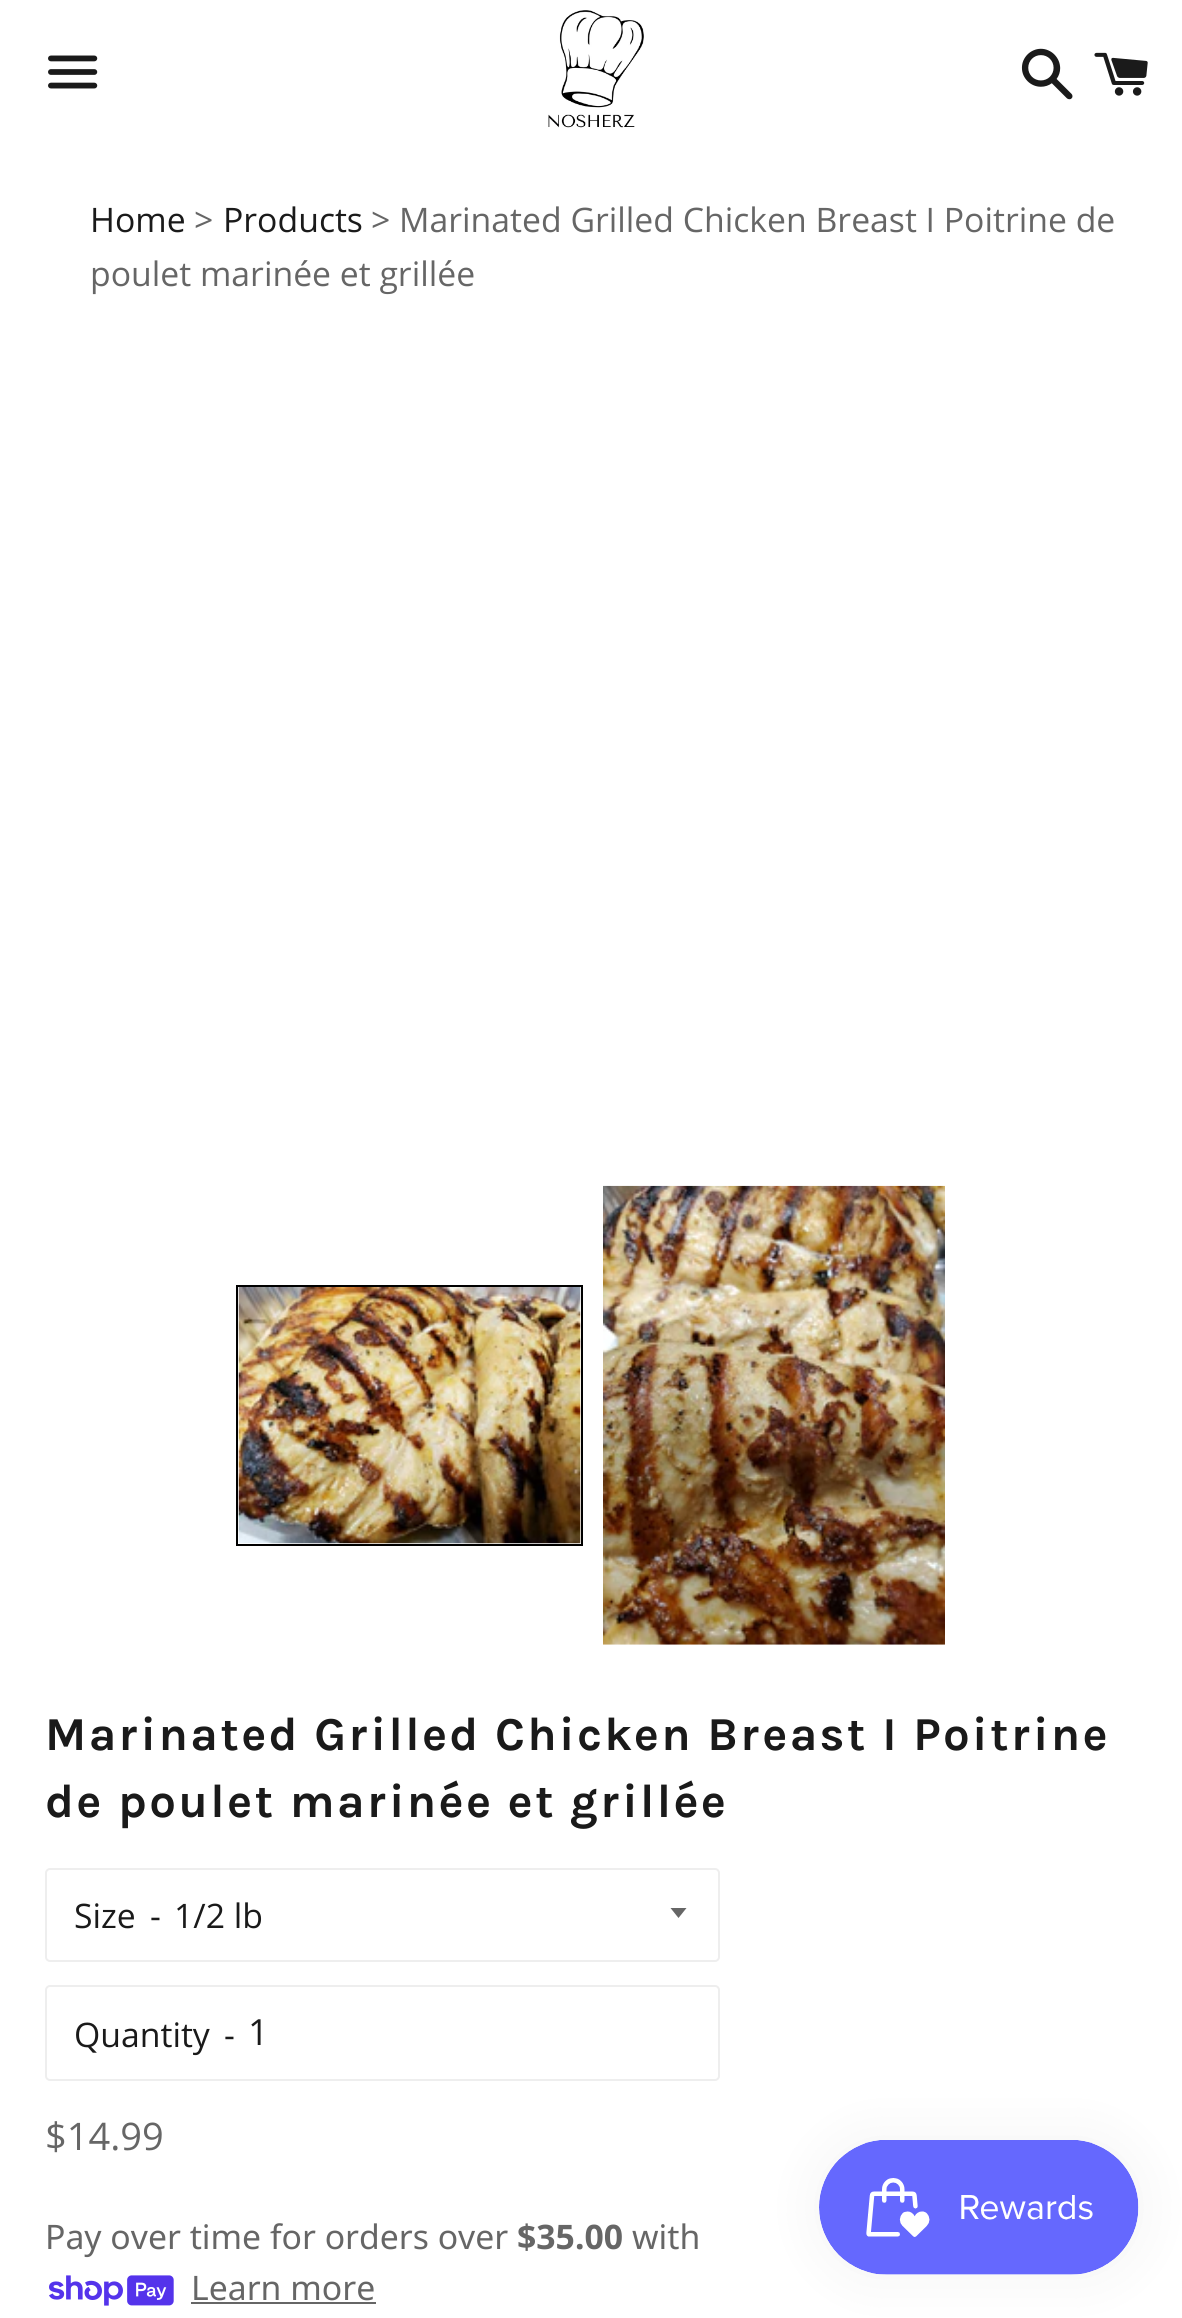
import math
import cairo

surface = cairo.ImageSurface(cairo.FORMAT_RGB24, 1182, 2318)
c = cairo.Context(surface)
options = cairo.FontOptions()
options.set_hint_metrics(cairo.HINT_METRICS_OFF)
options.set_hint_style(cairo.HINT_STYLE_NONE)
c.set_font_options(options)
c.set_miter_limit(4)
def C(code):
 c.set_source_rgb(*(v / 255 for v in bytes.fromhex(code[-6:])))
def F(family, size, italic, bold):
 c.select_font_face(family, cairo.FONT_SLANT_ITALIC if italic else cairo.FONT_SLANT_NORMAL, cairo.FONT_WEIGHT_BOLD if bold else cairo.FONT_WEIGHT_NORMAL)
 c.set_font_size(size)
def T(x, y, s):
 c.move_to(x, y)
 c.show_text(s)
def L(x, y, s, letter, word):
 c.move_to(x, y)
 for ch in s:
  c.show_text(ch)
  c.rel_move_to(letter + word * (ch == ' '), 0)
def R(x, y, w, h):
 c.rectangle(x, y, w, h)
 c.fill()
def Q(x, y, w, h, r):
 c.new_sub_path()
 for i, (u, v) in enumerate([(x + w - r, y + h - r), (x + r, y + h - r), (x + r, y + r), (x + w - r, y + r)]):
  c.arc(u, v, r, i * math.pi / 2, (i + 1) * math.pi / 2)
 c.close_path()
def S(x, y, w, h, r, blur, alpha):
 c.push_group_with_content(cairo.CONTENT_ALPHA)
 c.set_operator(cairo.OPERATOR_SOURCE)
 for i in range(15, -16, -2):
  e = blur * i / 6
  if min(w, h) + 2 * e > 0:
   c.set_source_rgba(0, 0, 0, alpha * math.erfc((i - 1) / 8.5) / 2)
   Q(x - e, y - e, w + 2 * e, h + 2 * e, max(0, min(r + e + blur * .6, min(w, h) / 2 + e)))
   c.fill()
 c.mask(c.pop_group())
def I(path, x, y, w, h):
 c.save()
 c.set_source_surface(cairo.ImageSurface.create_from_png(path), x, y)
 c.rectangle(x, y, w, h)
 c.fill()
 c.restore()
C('ffffff')
c.paint()
I('1.png',48,55,50,34)
I('2.png',548,10,96,118)
I('3.png',1021,48,52,52)
I('4.png',1094,52,54,44)
F('Open Sans',33.75,0,0)
C('1a1a1a')
T(90,232,'Home')
C('666666')
T(194,232,'>')
C('1a1a1a')
T(223,232,'Products')
C('666666')
T(371,232,'> Marinated Grilled Chicken Breast I Poitrine de')
T(90,286,'poulet marinée et grillée')
c.rectangle(237,1286,345,259)
C('000000')
c.stroke()
I('5.png',238,1287,343,257)
I('6.png',603,1185,342,460)
F('Karla',47.25,0,1)
C('1a1a1a')
L(45,1750,'Marinated Grilled Chicken Breast I Poitrine',2.35,0)
L(45,1817,'de poulet marinée et grillée',2.35,0)
Q(46,1869,673,92,4)
C('eeeeee')
c.stroke()
F('Open Sans',33.75,0,0)
C('1a1a1a')
T(74,1928,'Size')
T(150,1928,'-')
C('666666')
c.new_path()
c.move_to(670.5,1908)
c.line_to(678.5,1918)
c.line_to(686.5,1908)
c.close_path()
c.fill()
C('1a1a1a')
T(174,1928,'1/2 lb')
Q(46,1986,673,94,4)
C('eeeeee')
c.stroke()
C('1a1a1a')
T(74,2047,'Quantity')
T(224,2047,'-')
F('Open Sans',36,0,0)
T(248,2045,'1')
F('Open Sans',38,0,0)
C('666666')
T(45,2150,'$14.99')
F('Noto Sans',33.75,0,0)
T(45,2249,'Pay over time for orders over')
F('Noto Sans',33.75,0,1)
T(517,2249,'$35.00')
F('Noto Sans',33.75,0,0)
T(632,2249,'with')
I('7.png',49,2275,125,31)
T(191,2300,'Learn more')
R(191,2302,185,2)
C('000000')
S(819,2140,320,135,67.5,28,.05)
I('8.png',819,2140,320,135)
surface.write_to_png('o.png')
